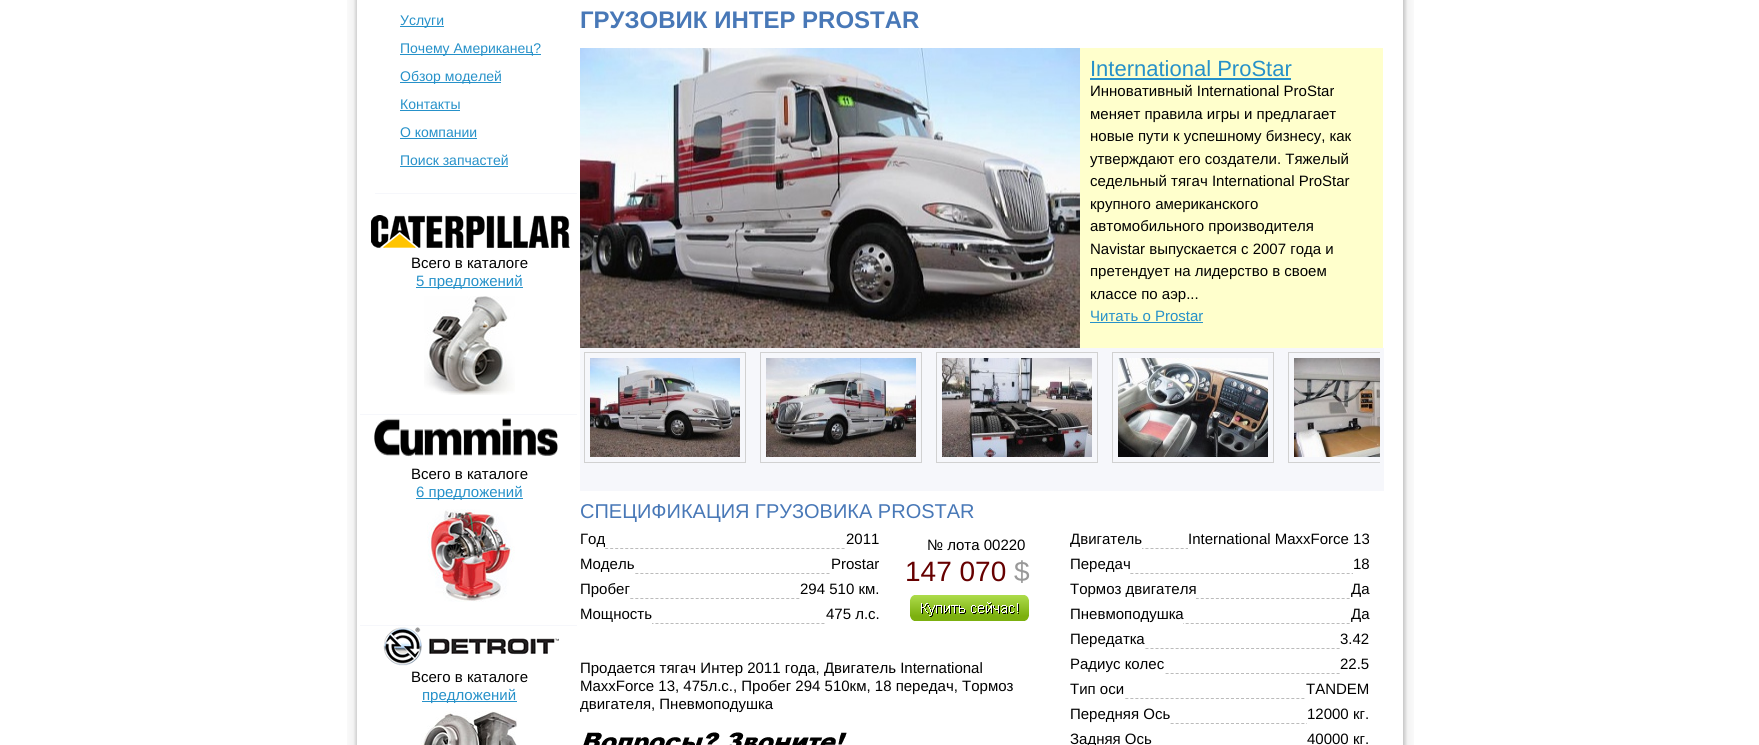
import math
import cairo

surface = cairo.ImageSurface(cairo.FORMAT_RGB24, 1759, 745)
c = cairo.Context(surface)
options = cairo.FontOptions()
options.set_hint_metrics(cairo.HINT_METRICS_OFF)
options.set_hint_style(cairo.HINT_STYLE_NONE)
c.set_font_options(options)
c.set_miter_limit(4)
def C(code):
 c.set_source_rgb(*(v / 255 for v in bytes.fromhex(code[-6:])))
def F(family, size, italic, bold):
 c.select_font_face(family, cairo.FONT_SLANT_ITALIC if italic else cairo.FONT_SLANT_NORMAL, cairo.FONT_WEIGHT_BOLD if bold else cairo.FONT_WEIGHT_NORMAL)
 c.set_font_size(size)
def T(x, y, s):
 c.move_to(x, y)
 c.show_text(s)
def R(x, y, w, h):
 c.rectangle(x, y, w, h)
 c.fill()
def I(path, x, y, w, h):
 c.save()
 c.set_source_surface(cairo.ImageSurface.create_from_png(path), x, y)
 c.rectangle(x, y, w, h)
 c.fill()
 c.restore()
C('ffffff')
c.paint()
I('1.png',347,0,1067,745)
C('2691c9')
R(400,26,44,1)
F('Liberation Sans',14,0,0)
T(400,25,'Услуги')
R(400,54,141,1)
T(400,53,'Почему Американец?')
R(400,82,101,1)
T(400,81,'Обзор моделей')
T(400,109,'Контакты')
R(400,110,60,1)
T(400,137,'О компании')
R(400,138,77,1)
T(400,165,'Поиск запчастей')
R(400,166,108,1)
C('f6f7fb')
R(375,193,202,1)
I('2.png',371,215,199,33)
F('Liberation Sans',15,0,0)
C('000000')
T(411,268,'Всего в каталоге')
C('2691c9')
R(416,287,107,1)
T(416,286,'5 предложений')
I('3.png',424,296,91,99)
C('f6f7fb')
R(360,414,217,1)
I('4.png',374,418,184,39)
C('000000')
T(411,479,'Всего в каталоге')
C('2691c9')
R(416,498,107,1)
T(416,497,'6 предложений')
I('5.png',427,509,88,93)
C('f6f7fb')
R(360,625,217,1)
I('6.png',383,627,176,39)
C('000000')
T(411,682,'Всего в каталоге')
C('2691c9')
R(422,701,95,1)
T(422,700,'предложений')
I('7.png',421,711,96,34)
F('Liberation Sans',24,0,1)
C('4878b7')
T(580,28,'ГРУЗОВИК ИНТЕР PROSTAR')
I('8.png',580,48,500,300)
C('ffffcc')
R(1080,48,303,300)
F('Liberation Sans',22,0,0)
C('2691c9')
T(1090,76,'International ProStar')
R(1090,78,201,2)
F('Liberation Sans',15,0,0)
C('000000')
T(1090,96,'Инновативный International ProStar')
T(1090,119,'меняет правила игры и предлагает')
T(1090,141,'новые пути к успешному бизнесу, как')
T(1090,164,'утверждают его создатели. Тяжелый')
T(1090,186,'седельный тягач International ProStar')
T(1090,209,'крупного американского')
T(1090,231,'автомобильного производителя')
T(1090,254,'Navistar выпускается с 2007 года и')
T(1090,276,'претендует на лидерство в своем')
T(1090,299,'классе по аэр...')
C('2691c9')
T(1090,321,'Читать о Prostar')
R(1090,322,113,1)
C('f6f7fb')
R(580,348,804,143)
c.rectangle(584.5,352.5,161,110)
C('d1d1d1')
c.set_line_width(1)
c.stroke()
c.rectangle(760.5,352.5,161,110)
c.stroke()
c.rectangle(936.5,352.5,161,110)
c.stroke()
c.rectangle(1112.5,352.5,161,110)
c.stroke()
c.save()
c.rectangle(584,352,796,135)
c.clip()
c.rectangle(1288.5,352.5,161,110)
c.stroke()
c.restore()
I('9.png',590,358,150,99)
I('10.png',766,358,150,99)
I('11.png',942,358,150,99)
I('12.png',1118,358,150,99)
I('13.png',1294,358,86,99)
F('Liberation Sans',20,0,0)
C('4878b7')
T(580,518,'СПЕЦИФИКАЦИЯ ГРУЗОВИКА PROSTAR')
c.new_path()
c.move_to(580,548.5)
c.line_to(880,548.5)
C('bbbbbb')
c.set_dash([3,2.03])
c.stroke()
C('ffffff')
R(580,548,24,1)
F('Liberation Sans',15,0,0)
C('000000')
T(580,544,'Год')
C('ffffff')
R(846,548,34,1)
C('000000')
T(846,544,'2011')
c.new_path()
c.move_to(580,573.5)
c.line_to(880,573.5)
C('bbbbbb')
c.stroke()
C('ffffff')
R(580,573,54,1)
C('000000')
T(580,569,'Модель')
C('ffffff')
R(831,573,49,1)
C('000000')
T(831,569,'Prostar')
c.new_path()
c.move_to(580,598.5)
c.line_to(880,598.5)
C('bbbbbb')
c.stroke()
C('ffffff')
R(580,598,49,1)
C('000000')
T(580,594,'Пробег')
C('ffffff')
R(801,598,79,1)
C('000000')
T(800,594,'294 510 км.')
c.new_path()
c.move_to(580,623.5)
c.line_to(880,623.5)
C('bbbbbb')
c.stroke()
C('ffffff')
R(580,623,72,1)
C('000000')
T(580,619,'Мощность')
C('ffffff')
R(826,623,54,1)
C('000000')
T(826,619,'475 л.с.')
T(927,550,'№ лота 00220')
F('Liberation Sans',28,0,0)
C('660000')
T(905,581,'147 070')
C('999999')
T(1014,581,'$')
I('14.png',910,595,119,26)
F('Liberation Sans',15,0,0)
C('000000')
T(580,673,'Продается тягач Интер 2011 года, Двигатель International')
T(580,691,'MaxxForce 13, 475л.с., Пробег 294 510км, 18 передач, Тормоз')
T(580,709,'двигателя, Пневмоподушка')
I('15.png',583,732,264,13)
c.new_path()
c.move_to(1070,548.5)
c.line_to(1370,548.5)
C('bbbbbb')
c.stroke()
C('ffffff')
R(1070,548,72,1)
C('000000')
T(1070,544,'Двигатель')
C('ffffff')
R(1188,548,182,1)
C('000000')
T(1188,544,'International MaxxForce 13')
c.new_path()
c.move_to(1070,573.5)
c.line_to(1370,573.5)
C('bbbbbb')
c.stroke()
C('ffffff')
R(1070,573,59,1)
C('000000')
T(1070,569,'Передач')
C('ffffff')
R(1353,573,17,1)
C('000000')
T(1353,569,'18')
c.new_path()
c.move_to(1070,598.5)
c.line_to(1370,598.5)
C('bbbbbb')
c.stroke()
C('ffffff')
R(1070,598,126,1)
C('000000')
T(1070,594,'Тормоз двигателя')
C('ffffff')
R(1351,598,19,1)
C('000000')
T(1351,594,'Да')
c.new_path()
c.move_to(1070,623.5)
c.line_to(1370,623.5)
C('bbbbbb')
c.stroke()
C('ffffff')
R(1070,623,113,1)
C('000000')
T(1070,619,'Пневмоподушка')
C('ffffff')
R(1351,623,19,1)
C('000000')
T(1351,619,'Да')
c.new_path()
c.move_to(1070,648.5)
c.line_to(1370,648.5)
C('bbbbbb')
c.stroke()
C('ffffff')
R(1070,648,74,1)
C('000000')
T(1070,644,'Передатка')
C('ffffff')
R(1341,648,29,1)
C('000000')
T(1340,644,'3.42')
c.new_path()
c.move_to(1070,673.5)
c.line_to(1370,673.5)
C('bbbbbb')
c.stroke()
C('ffffff')
R(1070,673,94,1)
C('000000')
T(1070,669,'Радиус колес')
C('ffffff')
R(1341,673,29,1)
C('000000')
T(1340,669,'22.5')
c.new_path()
c.move_to(1070,698.5)
c.line_to(1370,698.5)
C('bbbbbb')
c.stroke()
C('ffffff')
R(1070,698,54,1)
C('000000')
T(1070,694,'Тип оси')
C('ffffff')
R(1306,698,64,1)
C('000000')
T(1306,694,'TANDEM')
c.new_path()
c.move_to(1070,723.5)
c.line_to(1370,723.5)
C('bbbbbb')
c.stroke()
C('ffffff')
R(1070,723,99,1)
C('000000')
T(1070,719,'Передняя Ось')
C('ffffff')
R(1307,723,63,1)
C('000000')
T(1307,719,'12000 кг.')
T(1070,744,'Задняя Ось')
T(1307,744,'40000 кг.')
surface.write_to_png('o.png')
